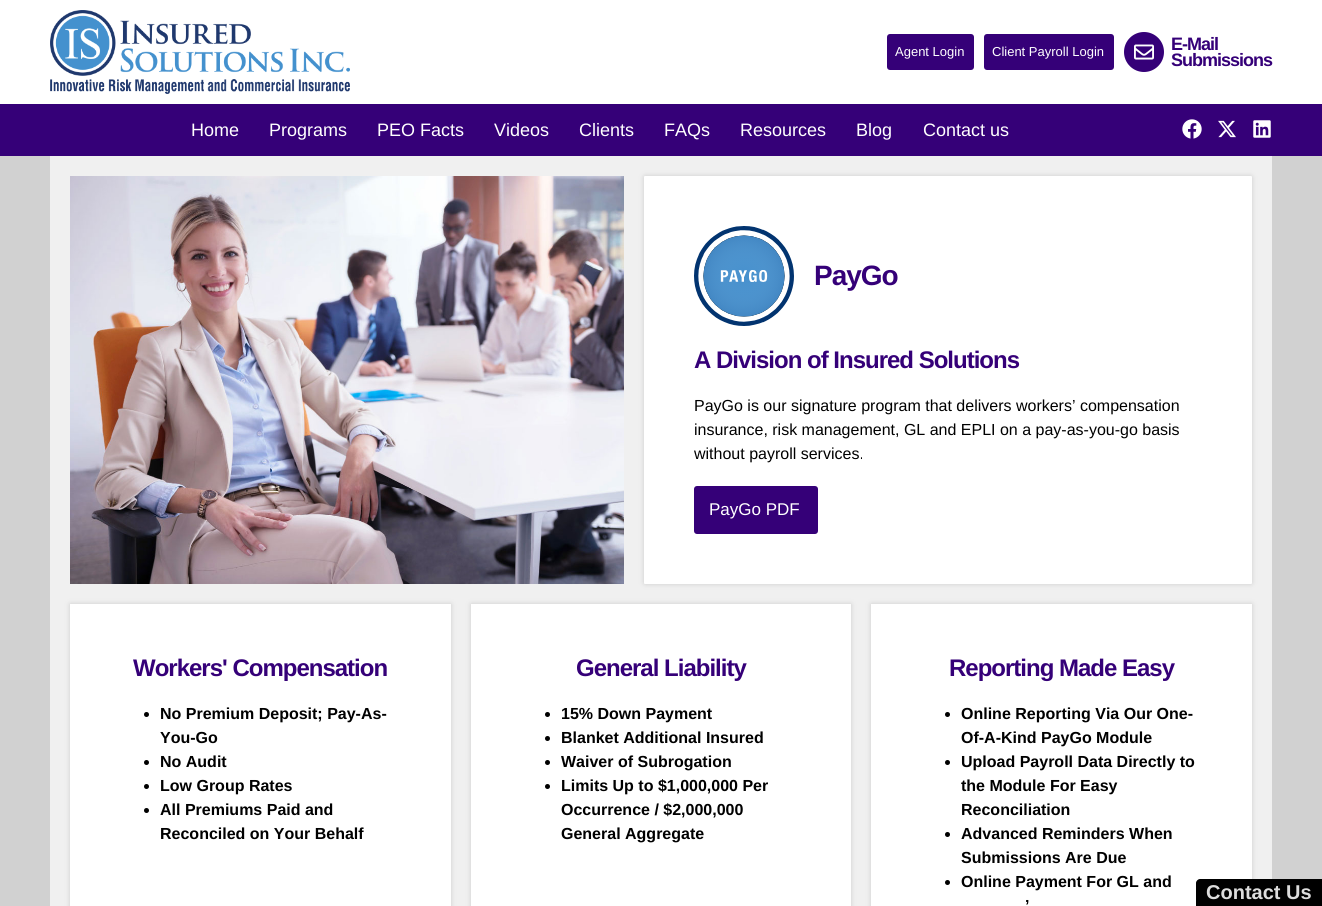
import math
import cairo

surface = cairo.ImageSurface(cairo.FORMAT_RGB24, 1322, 906)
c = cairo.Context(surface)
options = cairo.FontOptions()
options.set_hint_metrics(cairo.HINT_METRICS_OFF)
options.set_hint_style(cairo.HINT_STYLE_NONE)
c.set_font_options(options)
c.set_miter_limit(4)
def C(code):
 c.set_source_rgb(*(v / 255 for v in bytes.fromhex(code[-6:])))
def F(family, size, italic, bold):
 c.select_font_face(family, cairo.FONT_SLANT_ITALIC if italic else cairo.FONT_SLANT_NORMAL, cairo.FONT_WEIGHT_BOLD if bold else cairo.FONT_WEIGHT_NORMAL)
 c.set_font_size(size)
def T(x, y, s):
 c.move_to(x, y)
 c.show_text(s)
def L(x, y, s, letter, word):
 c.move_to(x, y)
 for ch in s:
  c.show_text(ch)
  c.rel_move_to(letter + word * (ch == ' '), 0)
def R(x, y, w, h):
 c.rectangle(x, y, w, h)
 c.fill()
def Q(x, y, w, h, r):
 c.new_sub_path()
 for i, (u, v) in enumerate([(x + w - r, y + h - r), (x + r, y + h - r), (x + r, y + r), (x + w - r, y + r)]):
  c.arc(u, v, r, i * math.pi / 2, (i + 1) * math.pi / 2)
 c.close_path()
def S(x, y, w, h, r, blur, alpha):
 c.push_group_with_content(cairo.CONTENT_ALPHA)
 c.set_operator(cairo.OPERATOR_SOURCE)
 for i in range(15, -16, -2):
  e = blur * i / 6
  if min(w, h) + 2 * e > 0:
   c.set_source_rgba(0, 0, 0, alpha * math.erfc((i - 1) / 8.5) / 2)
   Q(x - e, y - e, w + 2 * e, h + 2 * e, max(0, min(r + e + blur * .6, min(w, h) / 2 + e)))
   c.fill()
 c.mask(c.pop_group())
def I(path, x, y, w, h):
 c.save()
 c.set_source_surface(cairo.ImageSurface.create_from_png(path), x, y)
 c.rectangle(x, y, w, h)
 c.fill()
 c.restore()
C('ffffff')
c.paint()
I('1.png',50,10,300,84)
C('350078')
Q(887,34,87,36,3)
c.fill()
F('Liberation Sans',13,0,0)
C('ffffff')
T(895,56,'Agent Login')
C('350078')
Q(984,34,130,36,3)
c.fill()
C('ffffff')
T(992,56,'Client Payroll Login')
C('350078')
c.new_path()
c.arc(1144,52,20,0,2 * math.pi)
c.fill()
I('2.png',1134,44,20,16)
F('Liberation Sans',18,0,1)
L(1171,50,'E-Mail',-1,0)
L(1171,66,'Submissions',-1,0)
R(0,104,1322,52)
F('Liberation Sans',18,0,0)
C('ffffff')
T(191,136,'Home')
T(269,136,'Programs')
T(377,136,'PEO Facts')
T(494,136,'Videos')
T(579,136,'Clients')
T(664,136,'FAQs')
T(740,136,'Resources')
T(856,136,'Blog')
T(923,136,'Contact us')
I('3.png',1182,119,20,20)
I('4.png',1218,120,18,18)
I('5.png',1253,120,18,18)
C('d1d1d1')
R(0,156,1322,750)
C('f0f0f0')
R(50,156,1222,750)
I('6.png',70,176,554,408)
C('cecece')
S(644,176,608,408,1,2.5,1)
C('ffffff')
Q(644,176,608,408,1)
c.fill()
I('7.png',694,226,100,100)
F('Liberation Sans',28,0,1)
C('350078')
L(814,285,'PayGo',-1,0)
F('Liberation Sans',24,0,1)
L(694,368,'A Division of Insured Solutions',-1,0)
F('Liberation Sans',16,0,0)
C('000000')
T(694,411,'PayGo is our signature program that delivers workers’ compensation')
T(694,435,'insurance, risk management, GL and EPLI on a pay-as-you-go basis')
T(694,459,'without payroll services.')
C('350078')
Q(694,486,124,48,3)
c.fill()
F('Liberation Sans',17,0,0)
C('ffffff')
T(709,515,'PayGo PDF')
C('cecece')
S(70,604,381,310,0,2.5,1)
C('ffffff')
R(70,604,381,302)
F('Liberation Sans',24,0,1)
C('350078')
L(133,676,'Workers\' Compensation',-1,0)
C('000000')
c.new_path()
c.arc(146.5,714.5,2.5,0,2 * math.pi)
c.fill()
F('Liberation Sans',16,0,1)
T(160,719,'No Premium Deposit; Pay-As-')
T(160,743,'You-Go')
c.new_path()
c.arc(146.5,762.5,2.5,0,2 * math.pi)
c.fill()
T(160,767,'No Audit')
c.new_path()
c.arc(146.5,786.5,2.5,0,2 * math.pi)
c.fill()
T(160,791,'Low Group Rates')
c.new_path()
c.arc(146.5,810.5,2.5,0,2 * math.pi)
c.fill()
T(160,815,'All Premiums Paid and')
T(160,839,'Reconciled on Your Behalf')
C('cecece')
S(471,604,380,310,0,2.5,1)
C('ffffff')
R(471,604,380,302)
F('Liberation Sans',24,0,1)
C('350078')
L(576,676,'General Liability',-1,0)
C('000000')
c.new_path()
c.arc(547.5,714.5,2.5,0,2 * math.pi)
c.fill()
F('Liberation Sans',16,0,1)
T(561,719,'15% Down Payment')
c.new_path()
c.arc(547.5,738.5,2.5,0,2 * math.pi)
c.fill()
T(561,743,'Blanket Additional Insured')
c.new_path()
c.arc(547.5,762.5,2.5,0,2 * math.pi)
c.fill()
T(561,767,'Waiver of Subrogation')
c.new_path()
c.arc(547.5,786.5,2.5,0,2 * math.pi)
c.fill()
T(561,791,'Limits Up to $1,000,000 Per')
T(561,815,'Occurrence / $2,000,000')
T(561,839,'General Aggregate')
C('cecece')
S(871,604,381,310,0,2.5,1)
C('ffffff')
R(871,604,381,302)
F('Liberation Sans',24,0,1)
C('350078')
L(949,676,'Reporting Made Easy',-1,0)
C('000000')
c.new_path()
c.arc(947.5,714.5,2.5,0,2 * math.pi)
c.fill()
F('Liberation Sans',16,0,1)
T(961,719,'Online Reporting Via Our One-')
T(961,743,'Of-A-Kind PayGo Module')
c.new_path()
c.arc(947.5,762.5,2.5,0,2 * math.pi)
c.fill()
T(961,767,'Upload Payroll Data Directly to')
T(961,791,'the Module For Easy')
T(961,815,'Reconciliation')
c.new_path()
c.arc(947.5,834.5,2.5,0,2 * math.pi)
c.fill()
T(961,839,'Advanced Reminders When')
T(961,863,'Submissions Are Due')
c.new_path()
c.arc(947.5,882.5,2.5,0,2 * math.pi)
c.fill()
T(961,887,'Online Payment For GL and')
T(1025,911,'’')
c.new_path()
c.move_to(1200,879)
c.line_to(1322,879)
c.line_to(1322,906)
c.line_to(1196,906)
c.line_to(1196,883)
c.curve_to(1196,881,1198,879,1200,879)
c.close_path()
c.fill()
F('Liberation Sans',20,0,1)
C('dddddd')
T(1206,899,'Contact Us')
surface.write_to_png('o.png')
